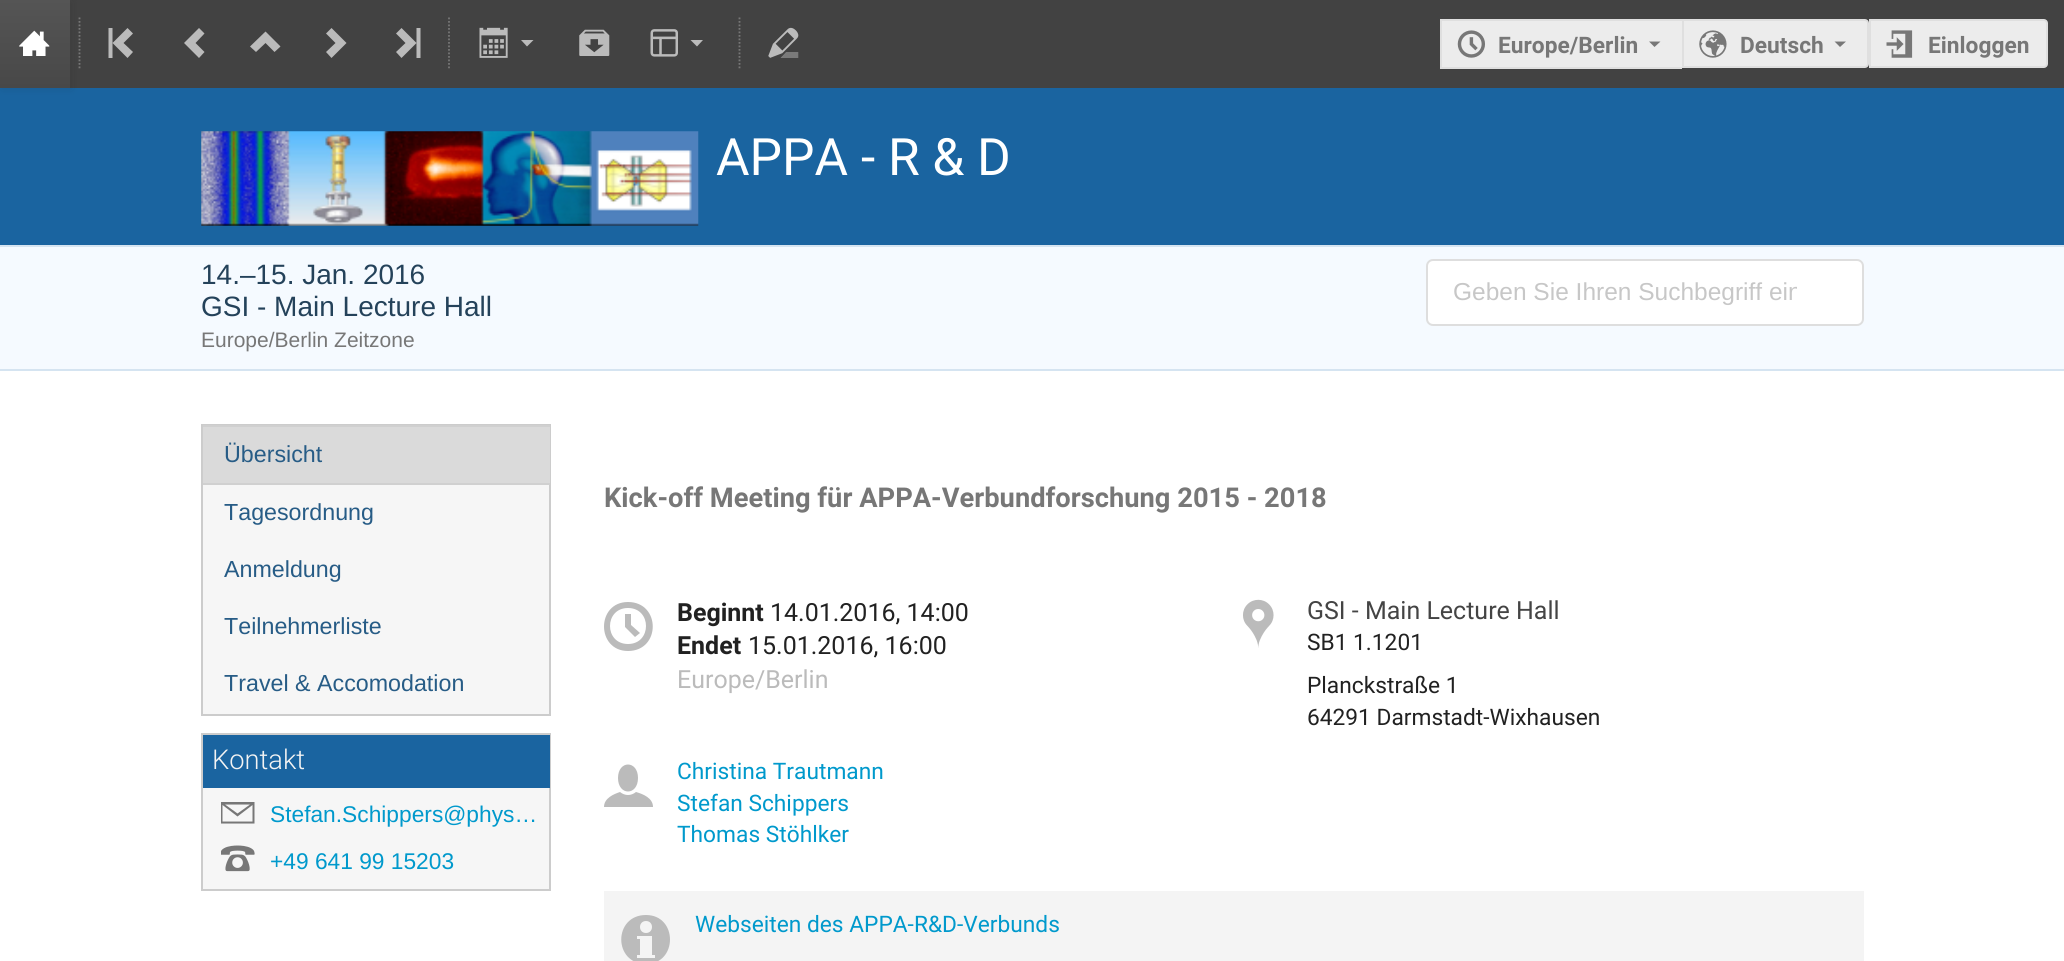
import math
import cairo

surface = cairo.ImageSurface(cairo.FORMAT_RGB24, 2064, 961)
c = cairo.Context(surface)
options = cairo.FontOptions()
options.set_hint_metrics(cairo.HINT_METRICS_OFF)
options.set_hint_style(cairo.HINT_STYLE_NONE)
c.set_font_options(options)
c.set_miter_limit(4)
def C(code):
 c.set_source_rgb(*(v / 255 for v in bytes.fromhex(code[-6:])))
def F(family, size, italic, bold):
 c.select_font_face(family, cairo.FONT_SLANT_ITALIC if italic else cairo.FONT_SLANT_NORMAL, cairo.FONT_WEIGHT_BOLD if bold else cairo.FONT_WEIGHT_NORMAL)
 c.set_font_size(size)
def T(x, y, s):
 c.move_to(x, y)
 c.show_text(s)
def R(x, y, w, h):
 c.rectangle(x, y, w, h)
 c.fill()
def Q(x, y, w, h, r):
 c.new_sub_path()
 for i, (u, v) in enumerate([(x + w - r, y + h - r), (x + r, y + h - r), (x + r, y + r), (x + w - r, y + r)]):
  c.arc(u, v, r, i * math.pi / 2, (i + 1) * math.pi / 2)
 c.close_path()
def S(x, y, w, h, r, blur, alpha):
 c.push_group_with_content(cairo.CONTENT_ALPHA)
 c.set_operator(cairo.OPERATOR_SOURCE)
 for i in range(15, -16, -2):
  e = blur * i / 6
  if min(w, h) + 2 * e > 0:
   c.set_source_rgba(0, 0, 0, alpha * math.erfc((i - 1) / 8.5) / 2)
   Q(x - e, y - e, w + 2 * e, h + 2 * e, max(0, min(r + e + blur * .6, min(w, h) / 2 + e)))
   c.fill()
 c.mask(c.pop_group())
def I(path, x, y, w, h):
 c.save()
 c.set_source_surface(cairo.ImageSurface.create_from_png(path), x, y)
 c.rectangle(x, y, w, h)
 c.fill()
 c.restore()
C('ffffff')
c.paint()
C('424242')
R(70,0,1994,88)
C('1a64a0')
R(0,88,2064,157)
C('141414')
S(2,2,70,87,0,3.5,.1)
gradient = cairo.LinearGradient(35,0,35,88)
gradient.add_color_stop_rgba(0,0.333,0.333,0.333,1)
gradient.add_color_stop_rgba(1,0.282,0.282,0.282,1)
c.set_source(gradient)
R(0,0,70,88)
I('1.png',19,30,31,26)
c.new_path()
c.move_to(79.5,17.5)
c.line_to(79.5,70)
C('777777')
c.set_line_width(1.8)
c.set_dash([1.75,1.75])
c.stroke()
C('bbbbbb')
c.new_path()
c.move_to(133,33.5)
c.line_to(127.5,28)
c.line_to(112.5,43)
c.line_to(127.5,58)
c.line_to(133,52)
c.line_to(123.5,43)
c.close_path()
c.move_to(108.5,28)
c.line_to(108.5,58)
c.line_to(112.5,58)
c.line_to(112.5,28)
c.close_path()
c.fill()
c.new_path()
c.move_to(199,58)
c.line_to(204.5,52)
c.line_to(195.5,43)
c.line_to(204.5,33.5)
c.line_to(199,28)
c.line_to(184,43)
c.close_path()
c.fill()
c.new_path()
c.move_to(250,46.5)
c.line_to(256,52)
c.line_to(265.5,43)
c.line_to(274.5,52)
c.line_to(280.5,46.5)
c.line_to(265.5,31.5)
c.close_path()
c.fill()
c.new_path()
c.move_to(331.5,28)
c.line_to(326,33.5)
c.line_to(335.5,43)
c.line_to(326,52)
c.line_to(331.5,58)
c.line_to(346.5,43)
c.close_path()
c.fill()
c.new_path()
c.move_to(396,52)
c.line_to(401.5,58)
c.line_to(416.5,43)
c.line_to(401.5,28)
c.line_to(396,33.5)
c.line_to(405.5,43)
c.close_path()
c.move_to(420.5,58)
c.line_to(420.5,28)
c.line_to(416.5,28)
c.line_to(416.5,58)
c.close_path()
c.fill()
c.new_path()
c.move_to(449,17.5)
c.line_to(449,70)
C('777777')
c.stroke()
I('2.png',479,27,29,31)
C('bbbbbb')
c.new_path()
c.move_to(521,40)
c.line_to(527,46.5)
c.line_to(533.5,40)
c.close_path()
c.fill()
I('3.png',579,29,31,27)
I('4.png',650,29,28,28)
c.new_path()
c.move_to(690.5,40)
c.line_to(697,46.5)
c.line_to(703,40)
c.close_path()
c.fill()
c.new_path()
c.move_to(739.5,17.5)
c.line_to(739.5,70)
C('777777')
c.stroke()
I('5.png',768,27,31,31)
C('ececec')
R(1442,21,240,46)
C('dfdfdf')
R(1440,19,242,2)
R(1440,67,242,2)
R(1440,19,2,49)
I('6.png',1457,30,28,28)
F('Roboto',22.75,0,1)
C('777777')
T(1498,53,'Europe/Berlin')
c.new_path()
c.move_to(1649,41.5)
c.line_to(1654.5,47)
c.line_to(1660.5,41.5)
c.close_path()
c.fill()
C('ececec')
c.new_path()
c.move_to(1683,20)
c.line_to(1865,20)
c.curve_to(1866.5,20,1868,21.5,1868,23)
c.line_to(1868,64)
c.curve_to(1868,65.5,1866.5,67,1865,67)
c.line_to(1683,67)
c.close_path()
c.fill_preserve()
C('dfdfdf')
c.set_line_width(2)
c.set_dash([])
c.stroke()
I('7.png',1699,30,28,28)
C('777777')
T(1740,53,'Deutsch')
c.new_path()
c.move_to(1834.5,41.5)
c.line_to(1840,47)
c.line_to(1846,41.5)
c.close_path()
c.fill()
C('ececec')
c.new_path()
c.move_to(1870,20)
c.line_to(2044,20)
c.curve_to(2045.5,20,2047,21.5,2047,23)
c.line_to(2047,64)
c.curve_to(2047,65.5,2045.5,67,2044,67)
c.line_to(1870,67)
c.close_path()
c.fill_preserve()
C('dfdfdf')
c.stroke()
I('8.png',1886,30,27,28)
C('777777')
T(1928,53,'Einloggen')
I('9.png',201,131,498,95)
F('Roboto',51.5,0,0)
C('ffffff')
T(716,175,'APPA - R & D')
C('f5faff')
R(0,247,2064,122)
C('d5e4f1')
R(0,245,2064,2)
R(0,369,2064,2)
F('Liberation Sans',28,0,0)
C('24425a')
T(201,284,'14.–15. Jan. 2016')
T(201,316,'GSI - Main Lecture Hall')
F('Liberation Sans',21,0,0)
C('777777')
T(201,347,'Europe/Berlin Zeitzone')
C('ffffff')
Q(1426,259,438,67,7)
c.fill()
Q(1427,260,436,65,6)
c.set_source_rgba(0.133,0.141,0.149,0.15)
c.stroke()
c.save()
c.rectangle(1453,278,344,28)
c.clip()
F('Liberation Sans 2',24.5,0,0)
C('c7c7c7')
T(1453,300,'Geben Sie Ihren Suchbegriff ein')
c.restore()
C('f6f6f6')
R(203,485,346,229)
c.rectangle(202,425,348,290)
C('cccccc')
c.stroke()
C('dadada')
R(203,427,347,56)
C('d0d0d0')
R(203,425,347,2)
R(203,483,347,2)
F('Liberation Sans 2',23.25,0,0)
C('275c86')
T(224,462,'Übersicht')
T(224,520,'Tagesordnung')
T(224,577,'Anmeldung')
T(224,634,'Teilnehmerliste')
T(224,691,'Travel & Accomodation')
C('f6f6f6')
R(203,788,346,101)
c.rectangle(202,734,348,156)
C('cccccc')
c.stroke()
C('1a64a0')
R(203,735,347,53)
F('Roboto Light',27.3,0,0)
C('f3f3f3')
T(212,769,'Kontakt')
c.save()
c.rectangle(221,796,320,37)
c.clip()
C('777777')
c.new_path()
c.move_to(220.5,802)
c.line_to(220.5,823.5)
c.line_to(254.5,823.5)
c.line_to(254.5,802)
c.close_path()
c.move_to(250,804.5)
c.line_to(237.5,813.5)
c.line_to(225,804.5)
c.close_path()
c.move_to(222.5,821.5)
c.line_to(222.5,805)
c.line_to(237.5,816.5)
c.line_to(252.5,805)
c.line_to(252.5,821.5)
c.close_path()
c.fill()
c.restore()
F('Liberation Sans',22.75,0,0)
C('0099cc')
T(270,822,'Stefan.Schippers@phys…')
I('10.png',221,845,34,27)
T(270,869,'+49 641 99 15203')
F('Roboto',27.3,0,1)
C('777777')
T(604,507,'Kick-off Meeting für APPA-Verbundforschung 2015 - 2018')
C('bbbbbb')
c.new_path()
c.move_to(635,637)
c.line_to(625,627)
c.line_to(625,614)
c.line_to(631,614)
c.line_to(631,625)
c.line_to(640,633)
c.close_path()
c.move_to(628,602)
c.curve_to(596,602,596,651,628,651)
c.curve_to(661,651,661,602,628,602)
c.close_path()
c.move_to(628,644)
c.curve_to(604,644,604,608,628,608)
c.curve_to(652,608,652,644,628,644)
c.close_path()
c.fill()
F('Roboto',25,0,1)
C('212121')
T(677,621,'Beginnt')
F('Roboto',25,0,0)
T(770,621,'14.01.2016, 14:00')
F('Roboto',25,0,1)
T(677,654,'Endet')
F('Roboto',25,0,0)
T(748,654,'15.01.2016, 16:00')
C('bbbbbb')
T(677,688,'Europe/Berlin')
I('11.png',1243,599,31,49)
C('444444')
T(1307,619,'GSI - Main Lecture Hall')
F('Roboto',22.75,0,0)
C('212121')
T(1307,650,'SB1 1.1201')
T(1307,693,'Planckstraße 1')
T(1307,725,'64291 Darmstadt-Wixhausen')
C('bbbbbb')
c.new_path()
c.move_to(636,792)
c.curve_to(631,796,625,796,620,792)
c.curve_to(614,794,604,798,604,807)
c.line_to(653,807)
c.curve_to(653,798,643,794,636,792)
c.close_path()
c.move_to(618,778)
c.curve_to(618,760,638,760,638,778)
c.curve_to(638,796,618,796,618,778)
c.close_path()
c.fill()
C('0099cc')
T(677,779,'Christina Trautmann')
T(677,811,'Stefan Schippers')
T(677,842,'Thomas Stöhlker')
C('f4f4f4')
R(604,891,1260,70)
C('bbbbbb')
c.new_path()
c.move_to(646,915)
c.curve_to(613,915,613,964,646,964)
c.curve_to(678,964,678,915,646,915)
c.close_path()
c.move_to(646,921)
c.curve_to(654,921,654,933,646,933)
c.curve_to(638,933,638,921,646,921)
c.close_path()
c.move_to(655,958)
c.line_to(637,958)
c.line_to(637,955)
c.line_to(640,955)
c.line_to(640,939)
c.line_to(637,939)
c.line_to(637,936)
c.line_to(652,936)
c.line_to(652,955)
c.line_to(655,955)
c.close_path()
c.fill()
C('0099cc')
T(695,932,'Webseiten des APPA-R&D-Verbunds')
surface.write_to_png('o.png')
